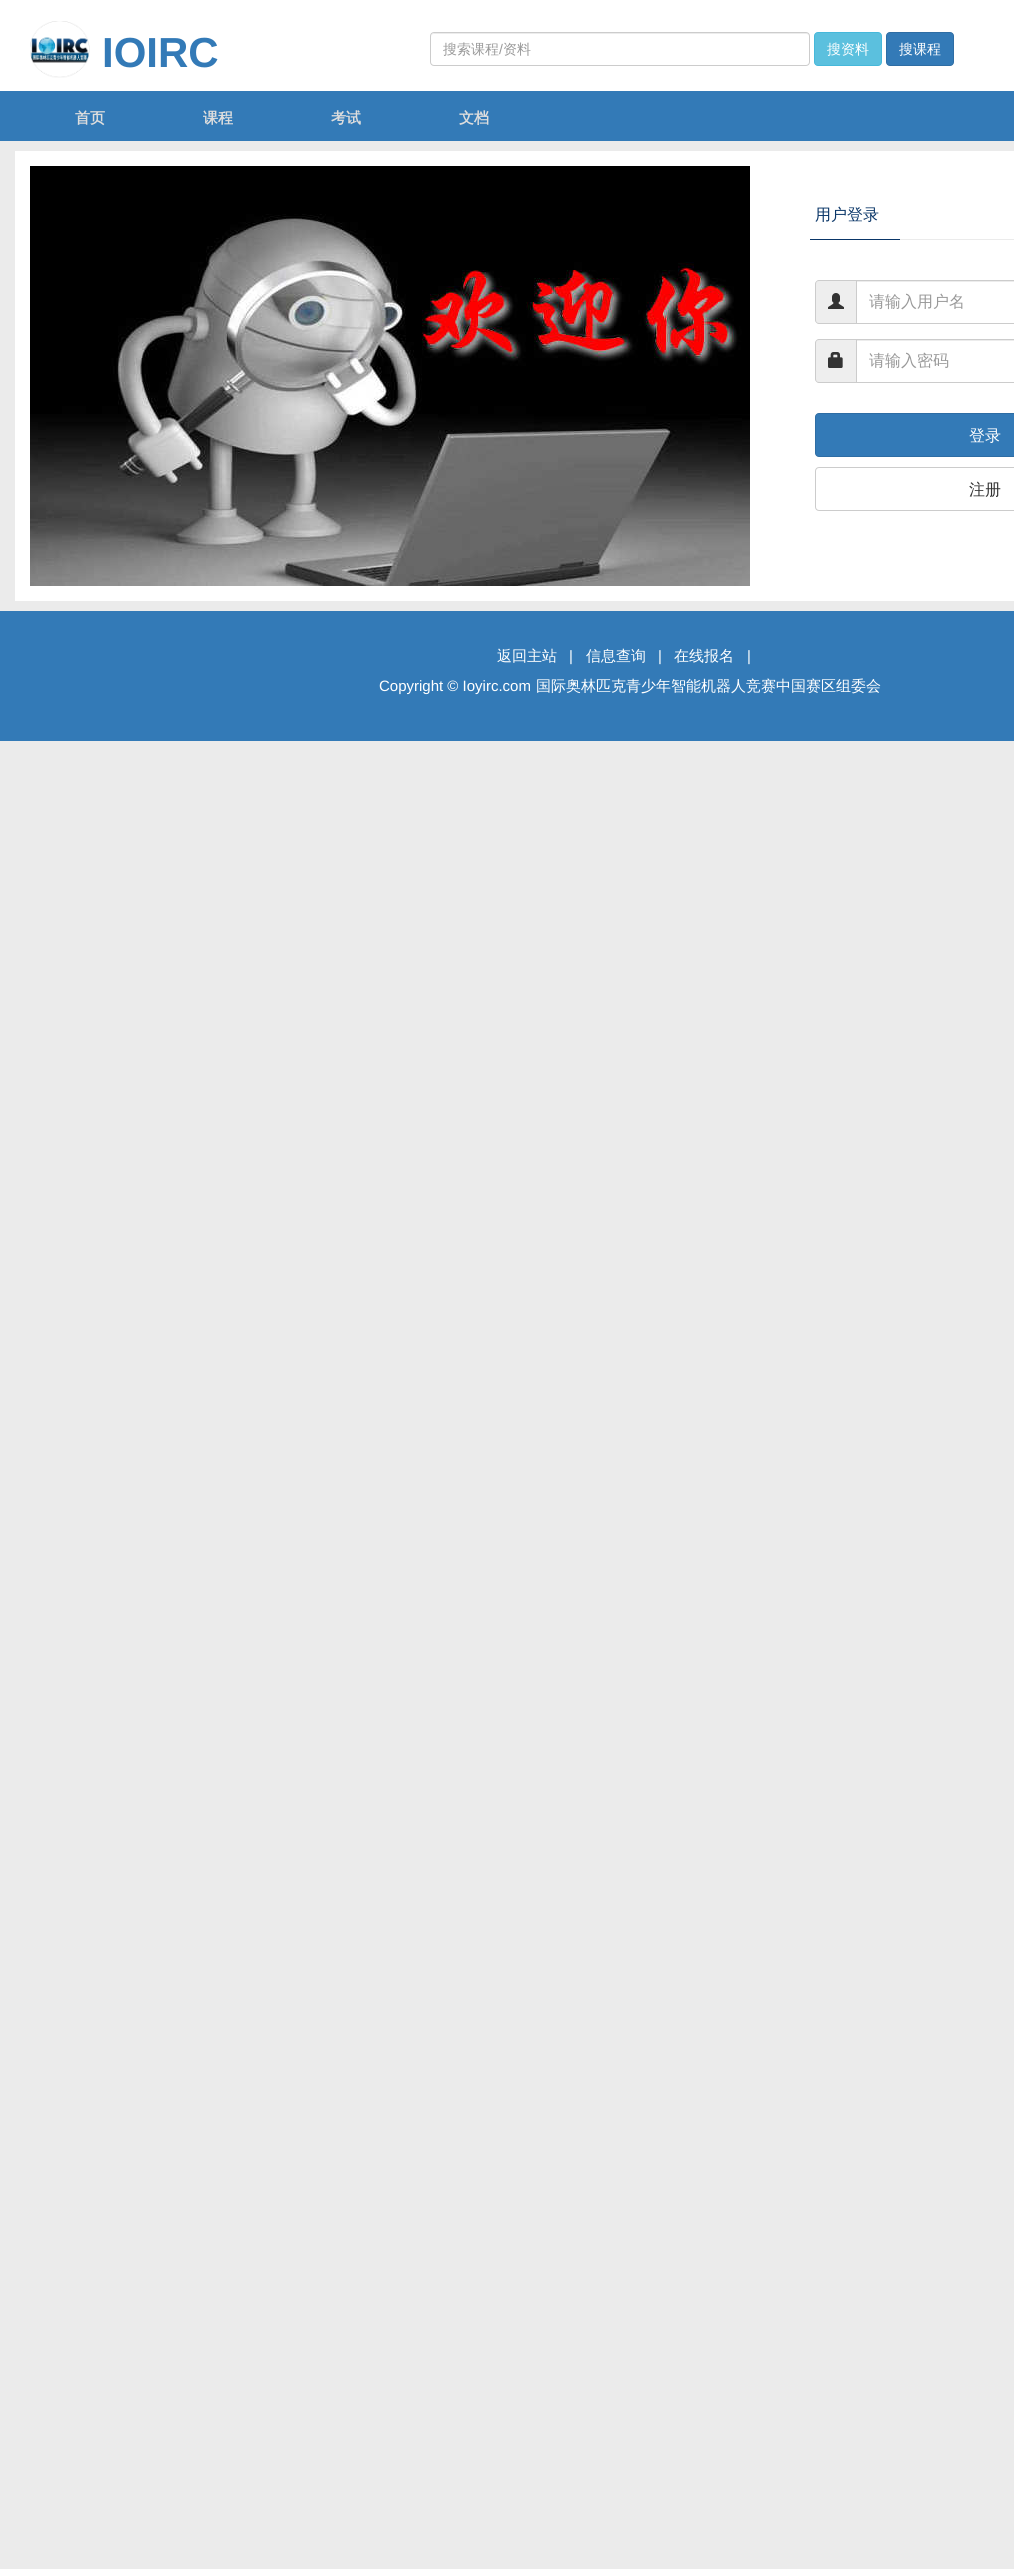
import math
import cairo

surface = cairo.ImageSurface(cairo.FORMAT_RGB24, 1014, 2569)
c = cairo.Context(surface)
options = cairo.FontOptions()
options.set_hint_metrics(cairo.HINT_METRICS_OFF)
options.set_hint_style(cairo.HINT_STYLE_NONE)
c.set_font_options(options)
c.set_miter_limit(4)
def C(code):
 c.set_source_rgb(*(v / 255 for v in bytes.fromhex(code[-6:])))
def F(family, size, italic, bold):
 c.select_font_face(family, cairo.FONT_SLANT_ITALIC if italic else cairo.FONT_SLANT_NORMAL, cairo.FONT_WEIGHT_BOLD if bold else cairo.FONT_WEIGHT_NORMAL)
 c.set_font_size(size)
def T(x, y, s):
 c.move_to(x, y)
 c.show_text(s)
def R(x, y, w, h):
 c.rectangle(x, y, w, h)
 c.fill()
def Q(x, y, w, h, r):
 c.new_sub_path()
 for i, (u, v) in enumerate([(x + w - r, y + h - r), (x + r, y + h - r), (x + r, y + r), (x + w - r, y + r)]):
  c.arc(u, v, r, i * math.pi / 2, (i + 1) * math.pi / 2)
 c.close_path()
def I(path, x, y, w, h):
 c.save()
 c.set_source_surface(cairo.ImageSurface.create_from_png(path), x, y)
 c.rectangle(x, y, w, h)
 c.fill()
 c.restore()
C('ebebeb')
c.paint()
C('ffffff')
R(0,0,1014,91)
I('1.png',30,21,60,57)
F('Liberation Sans',42,0,1)
C('337ab7')
T(102,67,'IOIRC')
C('ececec')
c.new_path()
c.move_to(434,34)
c.line_to(806,34)
c.curve_to(808,34,809,35,809,37)
c.curve_to(809,35,808,33,806,33)
c.line_to(434,33)
c.line_to(432,34)
c.line_to(431,37)
c.curve_to(431,35,432,34,434,34)
c.close_path()
c.fill()
Q(430.5,32.5,379,33,3.5)
C('cccccc')
c.set_line_width(1)
c.stroke()
F('WenQuanYi Zen Hei Medium',14,0,0)
C('999999')
T(443,54,'搜索课程')
F('Liberation Sans',14,0,0)
T(499,54,'/')
F('WenQuanYi Zen Hei Medium',14,0,0)
T(503,54,'资料')
C('5bc0de')
Q(814.5,32.5,67,33,3.5)
c.fill_preserve()
C('46b8da')
c.stroke()
C('ffffff')
T(827,54,'搜资料')
C('337ab7')
Q(886.5,32.5,67,33,3.5)
c.fill_preserve()
C('2e6da4')
c.stroke()
C('ffffff')
T(899,54,'搜课程')
C('337ab7')
R(0,91,1014,50)
F('WenQuanYi Zen Hei',15,0,1)
C('dddddd')
T(75,123,'首页')
T(203,123,'课程')
T(331,123,'考试')
T(459,123,'文档')
C('ffffff')
R(15,151,999,450)
I('2.png',30,166,720,420)
C('ebebeb')
R(900,239,114,1)
F('WenQuanYi Zen Hei Medium',16,0,0)
C('0a3668')
T(815,220,'用户登录')
R(810,239,90,1)
C('eeeeee')
c.new_path()
c.move_to(819,280)
c.line_to(856,280)
c.line_to(856,324)
c.line_to(819,324)
c.curve_to(817,324,815,322,815,320)
c.line_to(815,284)
c.curve_to(815,282,817,280,819,280)
c.close_path()
c.fill()
C('cccccc')
c.set_fill_rule(cairo.FILL_RULE_EVEN_ODD)
c.new_path()
c.move_to(819,280)
c.line_to(856,280)
c.line_to(856,324)
c.line_to(819,324)
c.curve_to(817,324,815,322,815,320)
c.line_to(815,284)
c.curve_to(815,282,817,280,819,280)
c.close_path()
c.move_to(819,281)
c.line_to(856,281)
c.line_to(856,323)
c.line_to(819,323)
c.curve_to(817,323,816,322,816,320)
c.line_to(816,284)
c.curve_to(816,282,817,281,819,281)
c.close_path()
c.fill()
I('3.png',828,293,16,16)
C('ececec')
c.set_fill_rule(cairo.FILL_RULE_WINDING)
c.new_path()
c.move_to(857,282)
c.line_to(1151,282)
c.curve_to(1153,282,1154,283,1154,285)
c.curve_to(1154,283,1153,281,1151,281)
c.line_to(857,281)
c.close_path()
c.fill()
c.rectangle(856.5,280.5,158,43)
C('cccccc')
c.stroke()
C('999999')
T(869,307,'请输入用户名')
C('eeeeee')
c.new_path()
c.move_to(819,339)
c.line_to(856,339)
c.line_to(856,383)
c.line_to(819,383)
c.curve_to(817,383,815,381,815,379)
c.line_to(815,343)
c.curve_to(815,341,817,339,819,339)
c.close_path()
c.fill()
C('cccccc')
c.set_fill_rule(cairo.FILL_RULE_EVEN_ODD)
c.new_path()
c.move_to(819,339)
c.line_to(856,339)
c.line_to(856,383)
c.line_to(819,383)
c.curve_to(817,383,815,381,815,379)
c.line_to(815,343)
c.curve_to(815,341,817,339,819,339)
c.close_path()
c.move_to(819,340)
c.line_to(856,340)
c.line_to(856,382)
c.line_to(819,382)
c.curve_to(817,382,816,381,816,379)
c.line_to(816,343)
c.curve_to(816,341,817,340,819,340)
c.close_path()
c.fill()
I('4.png',828,352,15,16)
C('ececec')
c.set_fill_rule(cairo.FILL_RULE_WINDING)
c.new_path()
c.move_to(857,341)
c.line_to(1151,341)
c.curve_to(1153,341,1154,342,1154,344)
c.curve_to(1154,342,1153,340,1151,340)
c.line_to(857,340)
c.close_path()
c.fill()
c.rectangle(856.5,339.5,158,43)
C('cccccc')
c.stroke()
C('999999')
T(869,366,'请输入密码')
C('337ab7')
Q(815.5,413.5,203,43,3.5)
c.fill_preserve()
C('2e6da4')
c.stroke()
C('ffffff')
T(969,441,'登录')
Q(815.5,467.5,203,43,3.5)
C('cccccc')
c.stroke()
C('333333')
T(969,495,'注册')
C('337ab7')
R(0,611,1014,130)
F('WenQuanYi Zen Hei Medium',15,0,0)
C('ffffff')
T(497,661,'返回主站')
F('Liberation Sans',15,0,0)
T(569,661,'|')
F('WenQuanYi Zen Hei Medium',15,0,0)
T(586,661,'信息查询')
F('Liberation Sans',15,0,0)
T(658,661,'|')
F('WenQuanYi Zen Hei Medium',15,0,0)
T(674,661,'在线报名')
F('Liberation Sans',15,0,0)
T(747,661,'|')
T(379,691,'Copyright © Ioyirc.com')
F('WenQuanYi Zen Hei Medium',15,0,0)
T(536,691,'国际奥林匹克青少年智能机器人竞赛中国赛区组委会')
surface.write_to_png('o.png')
